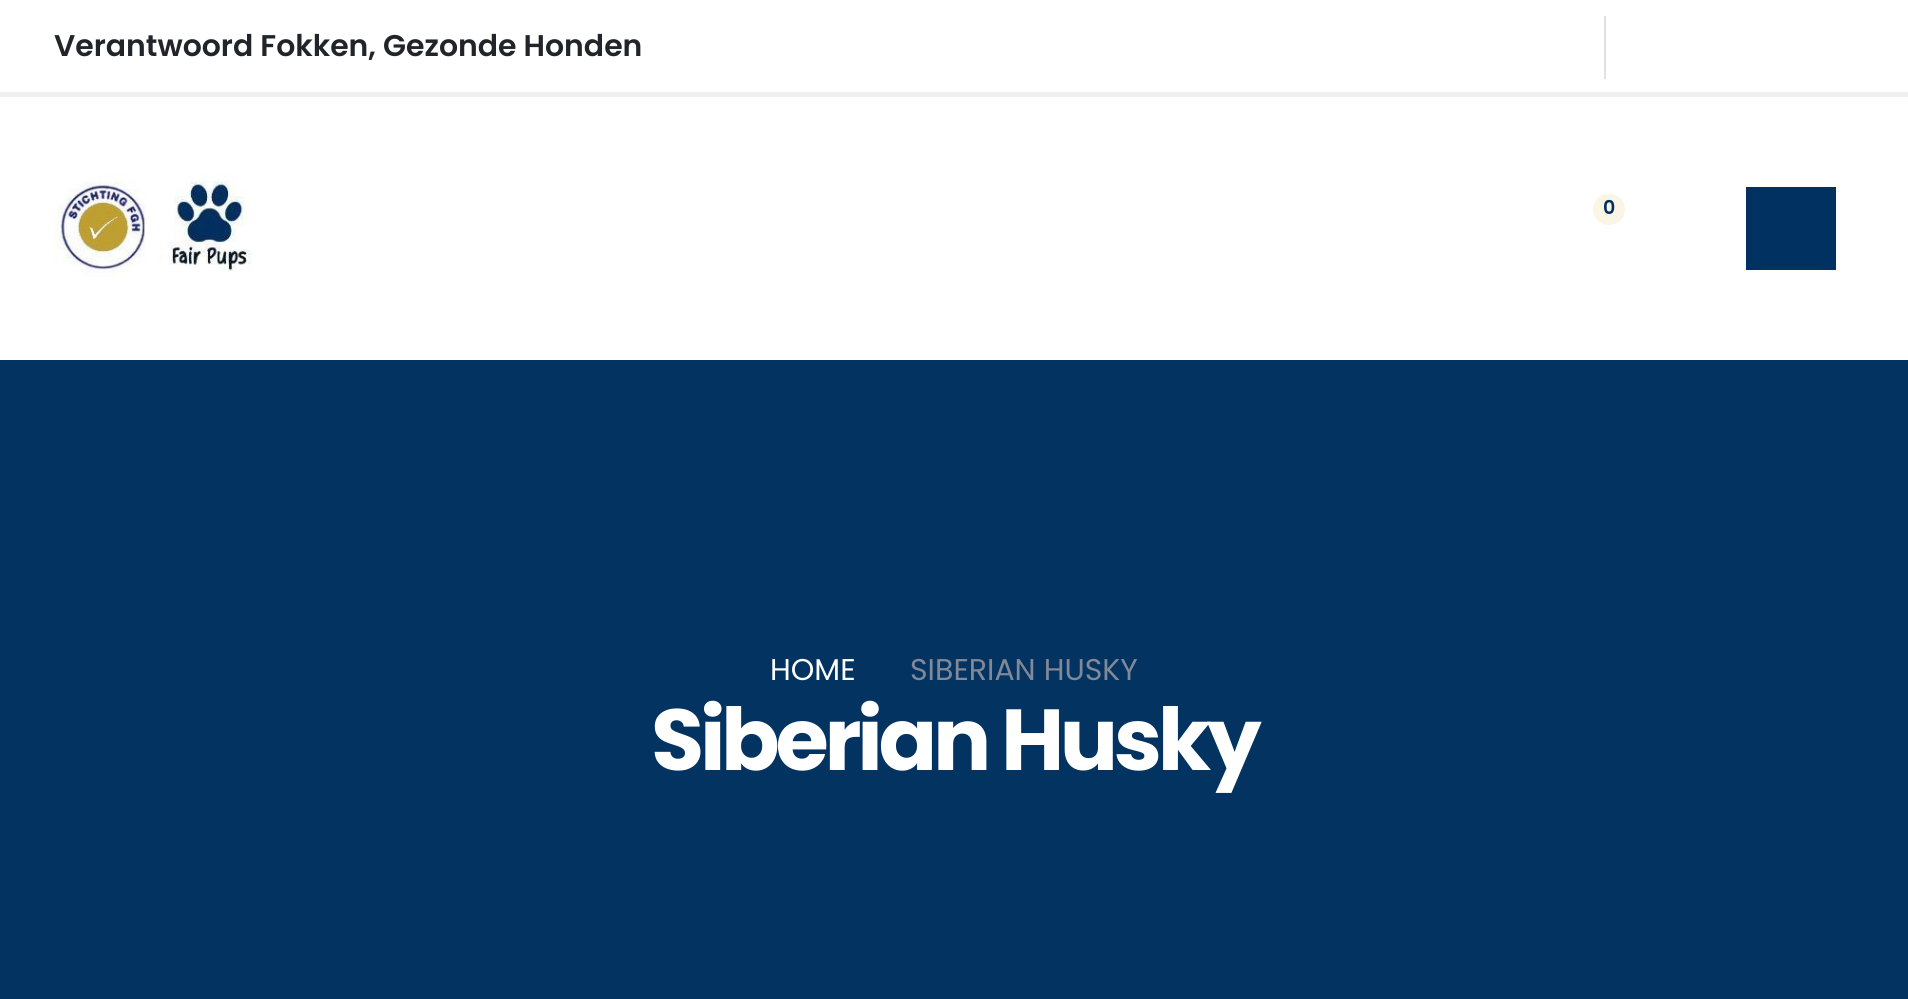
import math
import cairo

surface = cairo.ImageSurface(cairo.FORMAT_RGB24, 1908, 999)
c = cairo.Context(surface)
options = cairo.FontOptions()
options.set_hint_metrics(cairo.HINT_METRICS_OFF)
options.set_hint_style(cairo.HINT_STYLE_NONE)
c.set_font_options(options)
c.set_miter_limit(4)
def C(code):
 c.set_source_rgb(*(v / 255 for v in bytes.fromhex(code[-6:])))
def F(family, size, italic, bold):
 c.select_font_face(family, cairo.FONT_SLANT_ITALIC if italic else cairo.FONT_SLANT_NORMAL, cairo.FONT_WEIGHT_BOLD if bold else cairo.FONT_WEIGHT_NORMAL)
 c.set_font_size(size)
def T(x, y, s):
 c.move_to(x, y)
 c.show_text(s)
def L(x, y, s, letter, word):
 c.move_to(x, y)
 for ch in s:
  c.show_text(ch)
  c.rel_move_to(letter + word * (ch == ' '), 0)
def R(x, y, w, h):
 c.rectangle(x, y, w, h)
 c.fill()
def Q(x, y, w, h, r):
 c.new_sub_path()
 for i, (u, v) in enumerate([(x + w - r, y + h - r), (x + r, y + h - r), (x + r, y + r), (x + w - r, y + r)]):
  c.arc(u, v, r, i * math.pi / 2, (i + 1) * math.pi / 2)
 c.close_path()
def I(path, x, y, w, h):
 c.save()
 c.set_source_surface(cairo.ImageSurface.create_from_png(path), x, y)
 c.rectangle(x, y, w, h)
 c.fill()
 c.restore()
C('ffffff')
c.paint()
C('f0f0f0')
R(0,92,1908,5)
F('Poppins SemiBold',29.9,0,0)
C('212529')
T(54,56,'Verantwoord Fokken, Gezonde Honden')
C('dee2e6')
R(1604,16,2,63)
I('1.png',54,173,198,104)
C('faf5e5')
Q(1593,194,32,31,15.5)
c.fill()
F('Poppins SemiBold',19,0,0)
C('023060')
T(1603,214,'0')
C('013160')
R(1746,187,90,83)
C('033361')
R(0,360,1908,639)
F('Poppins',30,0,0)
C('ffffff')
T(770,680,'HOME')
C('818898')
T(910,680,'SIBERIAN HUSKY')
F('Poppins',86.5,0,1)
C('ffffff')
L(651,770,'Siberian Husky',-4.3,0)
surface.write_to_png('o.png')
